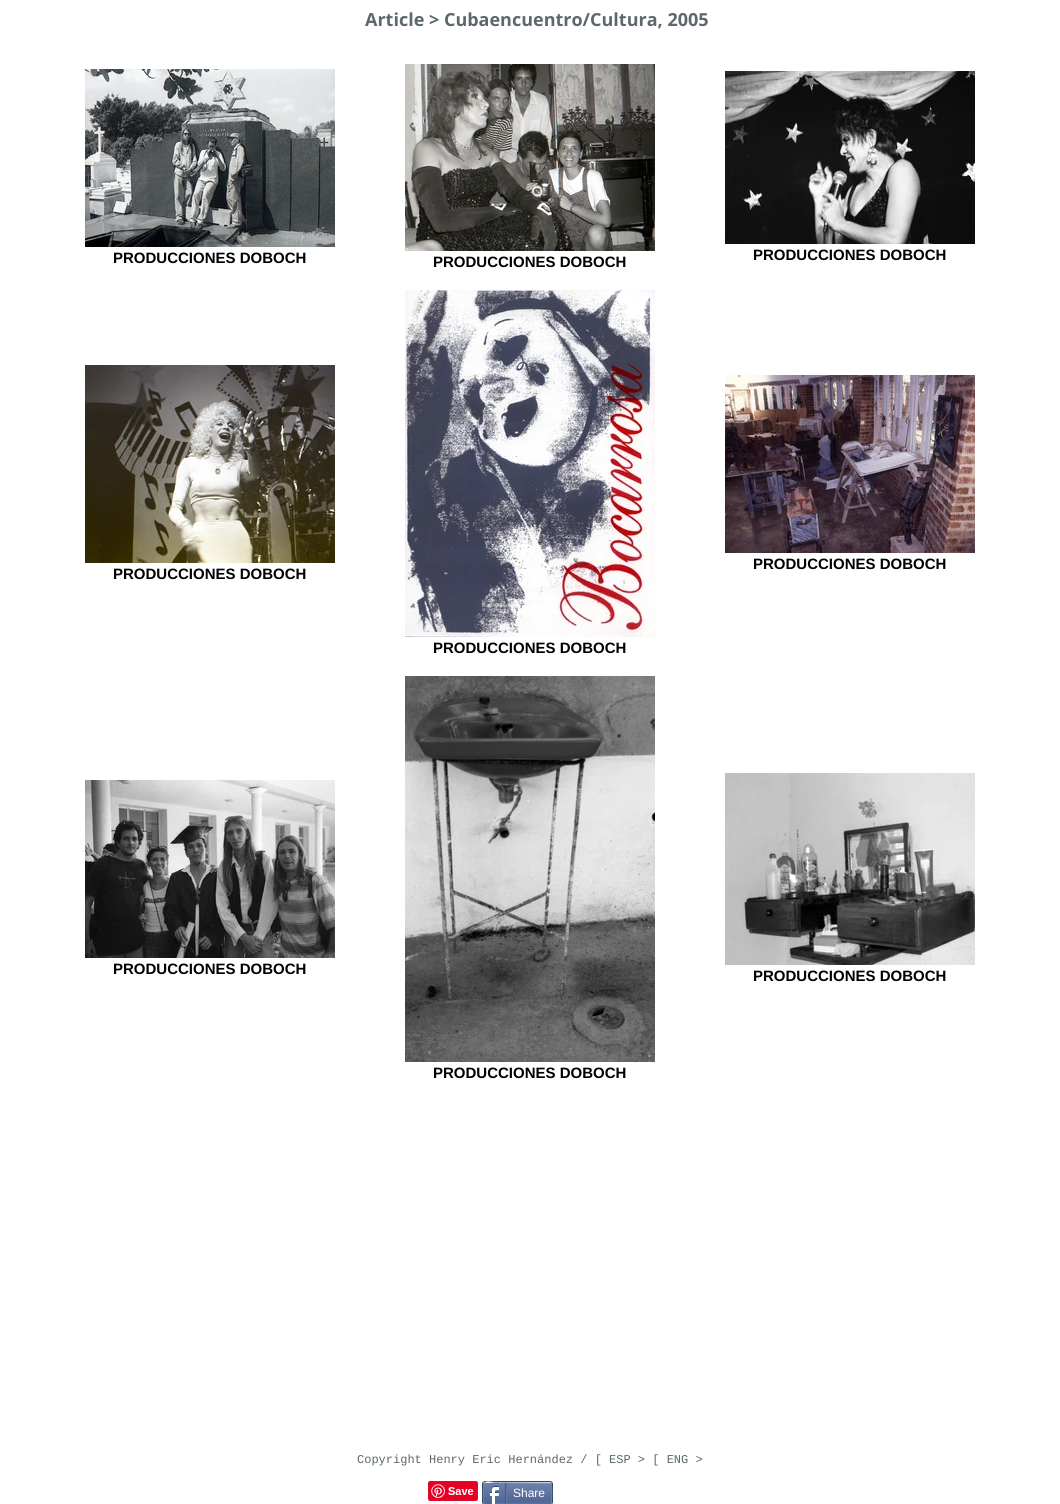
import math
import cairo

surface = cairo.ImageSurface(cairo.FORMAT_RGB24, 1060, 1504)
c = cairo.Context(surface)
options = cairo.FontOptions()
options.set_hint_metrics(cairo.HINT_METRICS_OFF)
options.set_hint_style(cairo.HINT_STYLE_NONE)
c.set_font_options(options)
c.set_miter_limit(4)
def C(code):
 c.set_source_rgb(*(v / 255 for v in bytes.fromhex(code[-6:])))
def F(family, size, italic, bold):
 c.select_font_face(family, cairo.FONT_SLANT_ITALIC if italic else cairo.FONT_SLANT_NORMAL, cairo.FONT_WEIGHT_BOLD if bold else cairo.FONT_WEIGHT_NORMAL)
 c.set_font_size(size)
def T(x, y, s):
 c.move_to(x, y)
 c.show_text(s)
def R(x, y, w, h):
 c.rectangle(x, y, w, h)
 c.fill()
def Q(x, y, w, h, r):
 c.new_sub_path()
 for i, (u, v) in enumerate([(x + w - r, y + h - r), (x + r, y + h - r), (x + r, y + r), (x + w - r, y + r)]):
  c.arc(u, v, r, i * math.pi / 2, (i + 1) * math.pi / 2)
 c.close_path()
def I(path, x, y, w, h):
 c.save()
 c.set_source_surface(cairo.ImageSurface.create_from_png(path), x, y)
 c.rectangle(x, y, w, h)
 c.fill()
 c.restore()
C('ffffff')
c.paint()
F('Open Sans',18,0,1)
C('5c686c')
T(365,26,'Article > Cubaencuentro/Cultura, 2005')
I('1.png',85,69,250,178)
F('Liberation Sans',15,0,1)
C('000000')
T(113,263,'PRODUCCIONES DOBOCH')
I('2.png',405,64,250,187)
T(433,267,'PRODUCCIONES DOBOCH')
I('3.png',725,71,250,173)
T(753,260,'PRODUCCIONES DOBOCH')
I('4.png',725,375,250,178)
T(753,569,'PRODUCCIONES DOBOCH')
I('5.png',85,365,250,198)
T(113,579,'PRODUCCIONES DOBOCH')
I('6.png',405,290,250,347)
T(433,653,'PRODUCCIONES DOBOCH')
I('7.png',85,780,250,178)
T(113,974,'PRODUCCIONES DOBOCH')
I('8.png',725,773,250,192)
T(753,981,'PRODUCCIONES DOBOCH')
I('9.png',405,676,250,386)
T(433,1078,'PRODUCCIONES DOBOCH')
F('Liberation Mono',12,0,0)
C('5c686c')
T(357,1463,'Copyright Henry Eric Hernández / [ ESP > [ ENG >')
I('10.png',428,1481,50,20)
Q(482.5,1481.5,70,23,2.5)
C('2d4565')
c.set_line_width(1)
c.stroke()
I('11.png',483,1483,69,21)
c.new_path()
c.move_to(484,1483)
c.curve_to(487,1480,492,1482.5,496,1482.5)
c.line_to(551,1483)
C('9aabc6')
c.stroke()
c.new_path()
c.move_to(551,1483)
c.curve_to(552,1483.5,552,1502.5,551,1503)
C('6f83ad')
c.stroke()
c.new_path()
c.move_to(551,1503)
c.line_to(496,1503.5)
c.curve_to(492,1503.5,487,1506,484,1503)
C('6176a3')
c.stroke()
c.new_path()
c.move_to(484,1503)
c.curve_to(483,1502.5,483,1483.5,484,1483)
C('6f83ad')
c.stroke()
I('12.png',489,1486,10,18)
C('425e85')
R(505,1483,1,21)
F('Liberation Sans',12,0,0)
C('ffffff')
T(513,1497,'Share')
C('6176a3')
R(506,1483,1,20)
surface.write_to_png('o.png')
